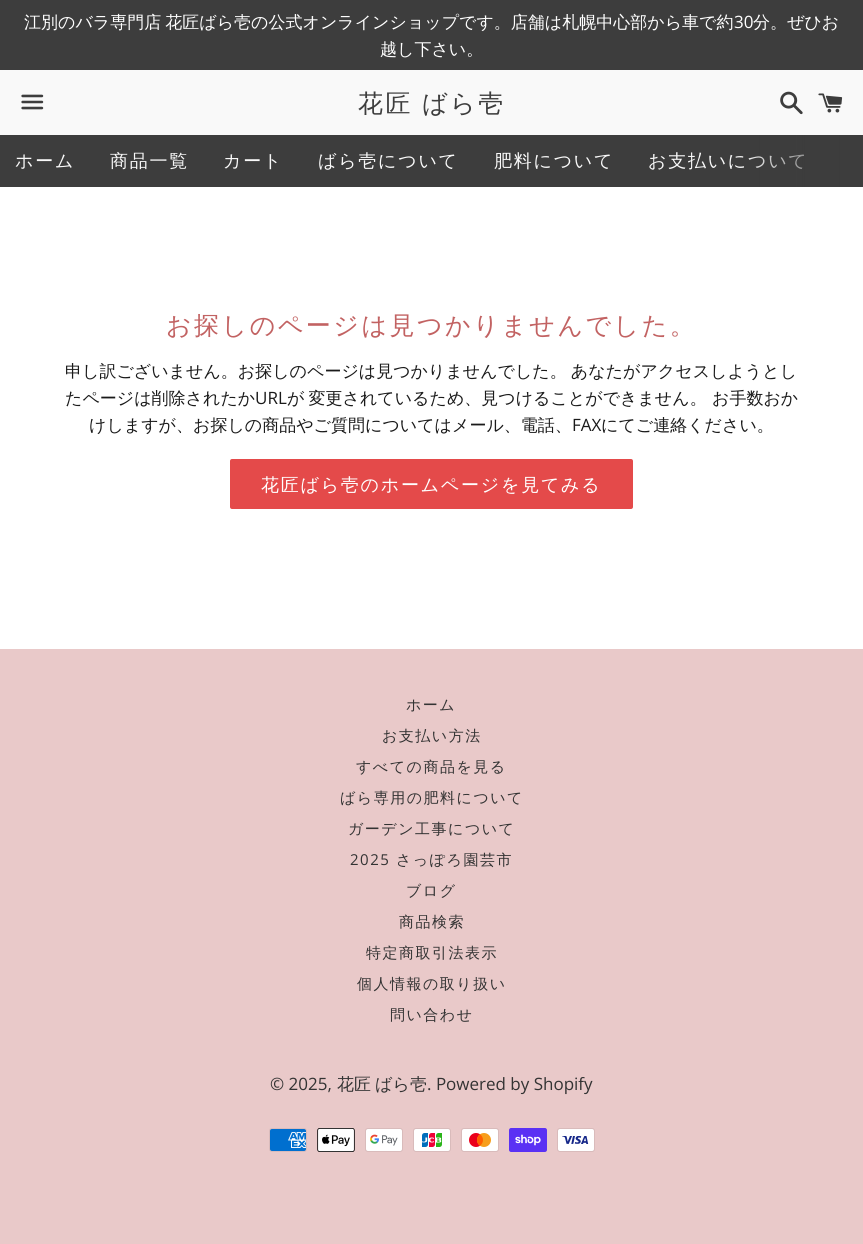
import math
import cairo

surface = cairo.ImageSurface(cairo.FORMAT_RGB24, 863, 1244)
c = cairo.Context(surface)
options = cairo.FontOptions()
options.set_hint_metrics(cairo.HINT_METRICS_OFF)
options.set_hint_style(cairo.HINT_STYLE_NONE)
c.set_font_options(options)
c.set_miter_limit(4)
def C(code):
 c.set_source_rgb(*(v / 255 for v in bytes.fromhex(code[-6:])))
def F(family, size, italic, bold):
 c.select_font_face(family, cairo.FONT_SLANT_ITALIC if italic else cairo.FONT_SLANT_NORMAL, cairo.FONT_WEIGHT_BOLD if bold else cairo.FONT_WEIGHT_NORMAL)
 c.set_font_size(size)
def T(x, y, s):
 c.move_to(x, y)
 c.show_text(s)
def L(x, y, s, letter, word):
 c.move_to(x, y)
 for ch in s:
  c.show_text(ch)
  c.rel_move_to(letter + word * (ch == ' '), 0)
def R(x, y, w, h):
 c.rectangle(x, y, w, h)
 c.fill()
def Q(x, y, w, h, r):
 c.new_sub_path()
 for i, (u, v) in enumerate([(x + w - r, y + h - r), (x + r, y + h - r), (x + r, y + r), (x + w - r, y + r)]):
  c.arc(u, v, r, i * math.pi / 2, (i + 1) * math.pi / 2)
 c.close_path()
def I(path, x, y, w, h):
 c.save()
 c.set_source_surface(cairo.ImageSurface.create_from_png(path), x, y)
 c.rectangle(x, y, w, h)
 c.fill()
 c.restore()
C('e9c9c9')
c.paint()
C('ffffff')
R(0,187,863,462)
C('3d3d3d')
R(0,0,863,70)
F('WenQuanYi Zen Hei Medium',17,0,0)
C('ffffff')
L(24,28,'江別のバラ専門店 花匠ばら壱の公式オンラインショップです。店舗は札幌中心部から車で約',0,-1)
F('Open Sans',17,0,0)
T(734,28,'30')
F('WenQuanYi Zen Hei Medium',17,0,0)
T(753,28,'分。ぜひお')
T(380,55,'越し下さい。')
C('f9f9f9')
R(0,70,863,65)
I('1.png',21,94,23,16)
F('WenQuanYi Zen Hei Medium',25,0,0)
C('3d3d3d')
L(358,112,'花匠 ばら壱',2.5,-1)
I('2.png',780,91,23,24)
I('3.png',818,93,25,20)
R(0,135,862,52)
F('WenQuanYi Zen Hei Medium',18,0,0)
C('f9f9f9')
L(648,167,'お支払いについて',1.75,0)
gradient = cairo.LinearGradient(738,161,863,161)
gradient.add_color_stop_rgba(0,0.239,0.239,0.239,0)
gradient.add_color_stop_rgba(1,0.239,0.239,0.239,1)
c.set_source(gradient)
R(741,135,122,52)
C('f9f9f9')
L(15,167,'ホーム',1.75,0)
L(110,167,'商品一覧',1.75,0)
L(223,167,'カート',1.75,0)
L(318,167,'ばら壱について',1.75,0)
L(494,167,'肥料について',1.75,0)
F('WenQuanYi Zen Hei Medium',25,0,0)
C('c26262')
L(166,334,'お探しのページは見つかりませんでした。',2.5,0)
F('WenQuanYi Zen Hei Medium',17,0,0)
C('1a1a1a')
L(65,377,'申し訳ございません。お探しのページは見つかりませんでした。 あなたがアクセスしようとし',0,-1)
T(65,404,'たページは削除されたか')
F('Open Sans',17,0,0)
T(255,404,'URL')
F('WenQuanYi Zen Hei Medium',17,0,0)
L(287,404,'が 変更されているため、見つけることができません。',0,-1)
T(712,404,'お手数おか')
T(89,431,'けしますが、お探しの商品やご質問についてはメール、電話、')
F('Open Sans',17,0,0)
T(572,431,'FAX')
F('WenQuanYi Zen Hei Medium',17,0,0)
T(601,431,'にてご連絡ください。')
C('e44a4a')
Q(230,459,403,50,2)
c.fill()
F('WenQuanYi Zen Hei Medium',18,0,0)
C('ffffff')
L(261,491,'花匠ばら壱のホームページを見てみる',1.75,0)
F('WenQuanYi Zen Hei Medium',15,0,0)
C('333333')
L(406,710,'ホーム',1.5,0)
L(382,741,'お支払い方法',1.5,0)
L(356,772,'すべての商品を見る',1.5,0)
L(340,803,'ばら専用の肥料について',1.5,0)
L(348,834,'ガーデン工事について',1.5,0)
F('Open Sans',15,0,0)
L(350,865,'2025',1.5,0)
F('WenQuanYi Zen Hei Medium',15,0,0)
L(396,865,'さっぽろ園芸市',1.5,0)
L(406,896,'ブログ',1.5,0)
L(399,927,'商品検索',1.5,0)
L(366,958,'特定商取引法表示',1.5,0)
L(357,989,'個人情報の取り扱い',1.5,0)
L(390,1020,'問い合わせ',1.5,0)
F('Open Sans',17,0,0)
T(270,1090,'© 2025,')
F('WenQuanYi Zen Hei Medium',17,0,0)
L(337,1090,'花匠 ばら壱',0,-1)
F('Open Sans',17,0,0)
T(427,1090,'. Powered by Shopify')
I('4.png',269,1128,38,24)
I('5.png',317,1128,38,24)
I('6.png',365,1128,38,24)
I('7.png',413,1128,38,24)
I('8.png',461,1128,38,24)
I('9.png',509,1128,38,24)
I('10.png',557,1128,38,24)
surface.write_to_png('o.png')
